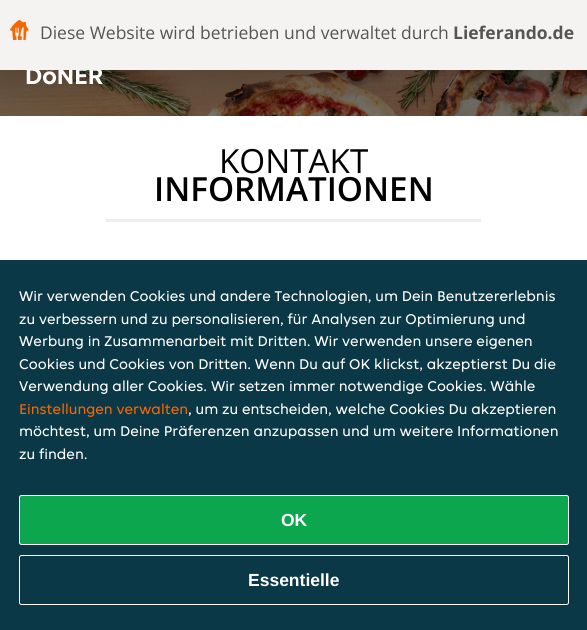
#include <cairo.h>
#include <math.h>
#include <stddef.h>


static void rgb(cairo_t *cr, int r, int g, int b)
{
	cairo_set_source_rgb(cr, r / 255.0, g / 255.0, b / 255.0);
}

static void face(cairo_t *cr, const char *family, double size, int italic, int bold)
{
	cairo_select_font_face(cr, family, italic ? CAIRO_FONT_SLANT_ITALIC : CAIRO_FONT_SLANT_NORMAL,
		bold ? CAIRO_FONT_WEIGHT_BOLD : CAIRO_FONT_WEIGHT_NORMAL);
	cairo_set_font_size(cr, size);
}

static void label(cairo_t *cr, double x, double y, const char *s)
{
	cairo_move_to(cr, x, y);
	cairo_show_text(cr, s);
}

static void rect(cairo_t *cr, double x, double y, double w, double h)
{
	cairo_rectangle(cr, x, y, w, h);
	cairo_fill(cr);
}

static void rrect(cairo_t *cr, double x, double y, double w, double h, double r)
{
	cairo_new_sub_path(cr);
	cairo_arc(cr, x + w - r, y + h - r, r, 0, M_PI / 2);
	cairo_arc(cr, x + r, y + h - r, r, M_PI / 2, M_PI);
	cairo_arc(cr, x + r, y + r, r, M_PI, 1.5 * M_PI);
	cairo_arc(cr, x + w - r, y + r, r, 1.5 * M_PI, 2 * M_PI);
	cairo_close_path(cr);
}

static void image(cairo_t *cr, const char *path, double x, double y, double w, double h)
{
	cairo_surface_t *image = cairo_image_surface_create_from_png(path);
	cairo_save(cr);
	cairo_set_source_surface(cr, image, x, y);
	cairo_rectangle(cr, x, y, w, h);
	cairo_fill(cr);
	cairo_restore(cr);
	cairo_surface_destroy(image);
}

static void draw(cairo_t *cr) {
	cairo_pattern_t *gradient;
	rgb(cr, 255, 255, 255);
	cairo_paint(cr);
	image(cr, "image1.png", 0, 70, 587, 46);
	gradient = cairo_pattern_create_linear(294, 0, 294, 625);
	cairo_pattern_add_color_stop_rgba(gradient, 0, 0, 0, 0, 0.7);
	cairo_pattern_add_color_stop_rgba(gradient, 0.33, 0, 0, 0, 0.4);
	cairo_pattern_add_color_stop_rgba(gradient, 0.67, 0, 0, 0, 0.2);
	cairo_pattern_add_color_stop_rgba(gradient, 1, 0, 0, 0, 0);
	cairo_set_source(cr, gradient);
	cairo_pattern_destroy(gradient);
	rect(cr, 0, 70, 587, 46);
	face(cr, "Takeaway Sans", 25, 0, 1);
	rgb(cr, 255, 255, 255);
	label(cr, 25, 84, "DöNER");
	rgb(cr, 245, 243, 241);
	rect(cr, 0, 0, 587, 70);
	image(cr, "image0.png", 10, 20, 19, 20);
	face(cr, "Open Sans", 17.5, 0, 0);
	rgb(cr, 85, 85, 85);
	label(cr, 40, 39, "Diese Website wird betrieben und verwaltet durch");
	face(cr, "Open Sans", 17.5, 0, 1);
	label(cr, 453, 39, "Lieferando.de");
	face(cr, "Open Sans", 33.25, 0, 0);
	rgb(cr, 0, 0, 0);
	label(cr, 219, 173, "KONTAKT");
	face(cr, "Open Sans SemiBold", 33.25, 0, 0);
	label(cr, 154, 201, "INFORMATIONEN");
	rgb(cr, 238, 238, 238);
	rect(cr, 106, 219, 375, 3);
	rgb(cr, 10, 56, 71);
	rect(cr, 0, 260, 587, 370);
	face(cr, "Takeaway Sans", 15, 0, 0);
	rgb(cr, 255, 255, 255);
	label(cr, 19, 301, "Wir verwenden Cookies und andere Technologien, um Dein Benutzererlebnis");
	label(cr, 19, 324, "zu verbessern und zu personalisieren, für Analysen zur Optimierung und");
	label(cr, 19, 346, "Werbung in Zusammenarbeit mit Dritten. Wir verwenden unsere eigenen");
	label(cr, 19, 369, "Cookies und Cookies von Dritten. Wenn Du auf OK klickst, akzeptierst Du die");
	label(cr, 19, 391, "Verwendung aller Cookies. Wir setzen immer notwendige Cookies. Wähle");
	rgb(cr, 248, 102, 0);
	label(cr, 19, 414, "Einstellungen verwalten");
	rgb(cr, 255, 255, 255);
	label(cr, 188, 414, ", um zu entscheiden, welche Cookies Du akzeptieren");
	label(cr, 19, 436, "möchtest, um Deine Präferenzen anzupassen und um weitere Informationen");
	label(cr, 19, 459, "zu finden.");
	rgb(cr, 12, 166, 79);
	rrect(cr, 19.5, 495.5, 549, 49, 2);
	cairo_fill_preserve(cr);
	rgb(cr, 255, 255, 255);
	cairo_set_line_width(cr, 1);
	cairo_stroke(cr);
	face(cr, "Liberation Sans", 17.5, 0, 1);
	label(cr, 281, 526, "OK");
	rrect(cr, 19.5, 555.5, 549, 49, 2);
	cairo_stroke(cr);
	label(cr, 248, 586, "Essentielle");
}

int main(void) {
	cairo_surface_t *surface = cairo_image_surface_create(CAIRO_FORMAT_RGB24, 587, 630);
	cairo_t *cr = cairo_create(surface);
	cairo_font_options_t *options = cairo_font_options_create();
	cairo_font_options_set_hint_metrics(options, CAIRO_HINT_METRICS_OFF);
	cairo_font_options_set_hint_style(options, CAIRO_HINT_STYLE_NONE);
	cairo_set_font_options(cr, options);
	cairo_set_miter_limit(cr, 4);
	draw(cr);
	cairo_surface_write_to_png(surface, "render.png");
	cairo_font_options_destroy(options);
	cairo_destroy(cr);
	cairo_surface_destroy(surface);
	return 0;
}
